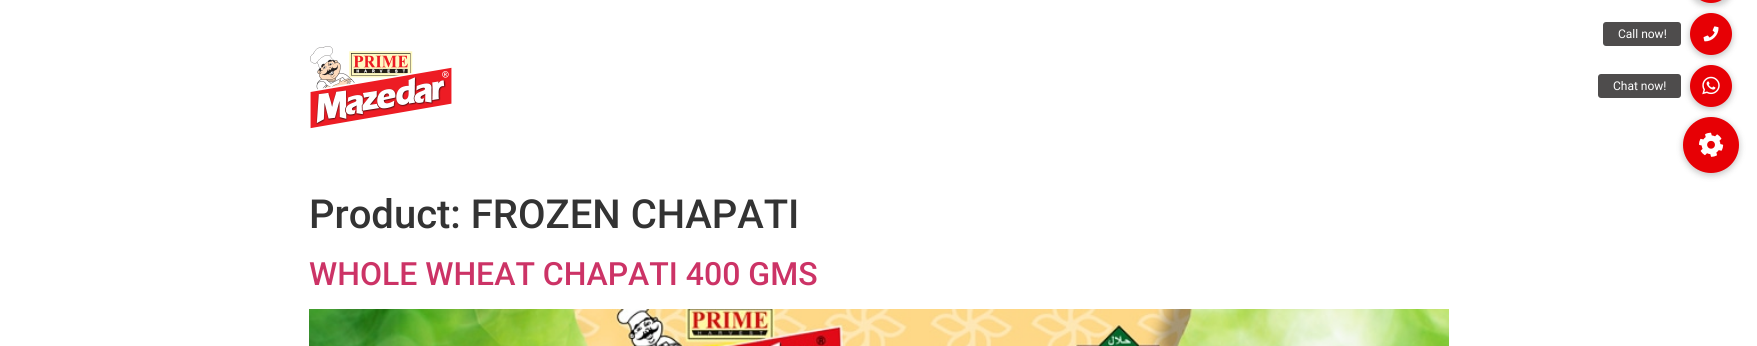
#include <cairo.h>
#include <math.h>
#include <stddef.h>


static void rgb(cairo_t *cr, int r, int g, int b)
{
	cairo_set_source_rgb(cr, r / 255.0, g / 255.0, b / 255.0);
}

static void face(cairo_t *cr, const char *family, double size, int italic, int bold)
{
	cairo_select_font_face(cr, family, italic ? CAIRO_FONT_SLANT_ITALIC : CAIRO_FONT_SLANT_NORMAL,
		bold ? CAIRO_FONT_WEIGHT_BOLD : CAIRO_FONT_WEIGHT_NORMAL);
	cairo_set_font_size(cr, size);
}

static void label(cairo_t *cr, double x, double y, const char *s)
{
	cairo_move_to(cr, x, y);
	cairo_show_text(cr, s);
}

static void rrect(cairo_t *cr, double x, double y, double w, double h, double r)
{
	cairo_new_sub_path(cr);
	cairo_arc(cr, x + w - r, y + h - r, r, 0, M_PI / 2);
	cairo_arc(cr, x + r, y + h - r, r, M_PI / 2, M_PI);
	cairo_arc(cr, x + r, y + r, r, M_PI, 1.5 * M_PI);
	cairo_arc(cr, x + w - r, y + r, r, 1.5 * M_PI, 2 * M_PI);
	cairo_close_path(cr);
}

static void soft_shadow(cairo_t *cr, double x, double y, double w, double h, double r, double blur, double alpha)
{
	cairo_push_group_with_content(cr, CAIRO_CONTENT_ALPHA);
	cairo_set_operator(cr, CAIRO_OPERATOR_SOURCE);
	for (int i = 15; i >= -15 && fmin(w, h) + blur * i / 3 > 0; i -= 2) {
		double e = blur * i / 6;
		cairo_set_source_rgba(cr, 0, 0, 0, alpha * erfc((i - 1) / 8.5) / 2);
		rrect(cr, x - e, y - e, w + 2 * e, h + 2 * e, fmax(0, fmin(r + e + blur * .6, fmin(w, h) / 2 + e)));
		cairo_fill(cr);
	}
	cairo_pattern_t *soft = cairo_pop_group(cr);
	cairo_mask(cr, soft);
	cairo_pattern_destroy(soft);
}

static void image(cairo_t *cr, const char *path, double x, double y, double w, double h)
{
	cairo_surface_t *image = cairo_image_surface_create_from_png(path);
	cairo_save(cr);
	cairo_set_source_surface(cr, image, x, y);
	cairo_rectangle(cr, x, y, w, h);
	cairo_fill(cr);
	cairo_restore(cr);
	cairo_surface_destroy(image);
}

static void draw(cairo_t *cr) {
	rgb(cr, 255, 255, 255);
	cairo_paint(cr);
	image(cr, "image0.png", 310, 46, 142, 83);
	rgb(cr, 0, 0, 0);
	soft_shadow(cr, 1689, 66, 44, 44, 22, 3, 0.2);
	rgb(cr, 231, 0, 5);
	cairo_arc(cr, 1711, 86, 21, 0, 2 * M_PI);
	cairo_fill(cr);
	rgb(cr, 0, 0, 0);
	soft_shadow(cr, 1689, 14, 44, 44, 22, 3, 0.2);
	rgb(cr, 231, 0, 5);
	cairo_arc(cr, 1711, 34, 21, 0, 2 * M_PI);
	cairo_fill(cr);
	rgb(cr, 0, 0, 0);
	soft_shadow(cr, 1689, -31, 44, 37, 22, 3, 0.2);
	rgb(cr, 231, 0, 5);
	rrect(cr, 1690, -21, 42, 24, 21);
	cairo_fill(cr);
	rgb(cr, 78, 76, 76);
	rrect(cr, 1603, 22, 78, 24, 3);
	cairo_fill(cr);
	face(cr, "Roboto", 12, 0, 0);
	rgb(cr, 255, 255, 255);
	label(cr, 1618, 38, "Call now!");
	image(cr, "image1.png", 1703, 26, 16, 16);
	rgb(cr, 78, 76, 76);
	rrect(cr, 1598, 74, 83, 24, 3);
	cairo_fill(cr);
	rgb(cr, 255, 255, 255);
	label(cr, 1613, 90, "Chat now!");
	image(cr, "image2.png", 1702, 76, 18, 19);
	rgb(cr, 0, 0, 0);
	soft_shadow(cr, 1682, 118, 58, 58, 29, 3, 0.2);
	rgb(cr, 231, 0, 5);
	cairo_arc(cr, 1711, 145, 28, 0, 2 * M_PI);
	cairo_fill(cr);
	image(cr, "image3.png", 1699, 132, 25, 25);
	face(cr, "Roboto Medium", 40, 0, 0);
	rgb(cr, 51, 51, 51);
	label(cr, 309, 228, "Product: FROZEN CHAPATI");
	face(cr, "Roboto Medium", 32, 0, 0);
	rgb(cr, 204, 51, 102);
	label(cr, 309, 285, "WHOLE WHEAT CHAPATI 400 GMS");
	image(cr, "image4.png", 309, 309, 1140, 37);
}

int main(void) {
	cairo_surface_t *surface = cairo_image_surface_create(CAIRO_FORMAT_RGB24, 1757, 346);
	cairo_t *cr = cairo_create(surface);
	cairo_font_options_t *options = cairo_font_options_create();
	cairo_font_options_set_hint_metrics(options, CAIRO_HINT_METRICS_OFF);
	cairo_font_options_set_hint_style(options, CAIRO_HINT_STYLE_NONE);
	cairo_set_font_options(cr, options);
	cairo_set_miter_limit(cr, 4);
	draw(cr);
	cairo_surface_write_to_png(surface, "render.png");
	cairo_font_options_destroy(options);
	cairo_destroy(cr);
	cairo_surface_destroy(surface);
	return 0;
}
